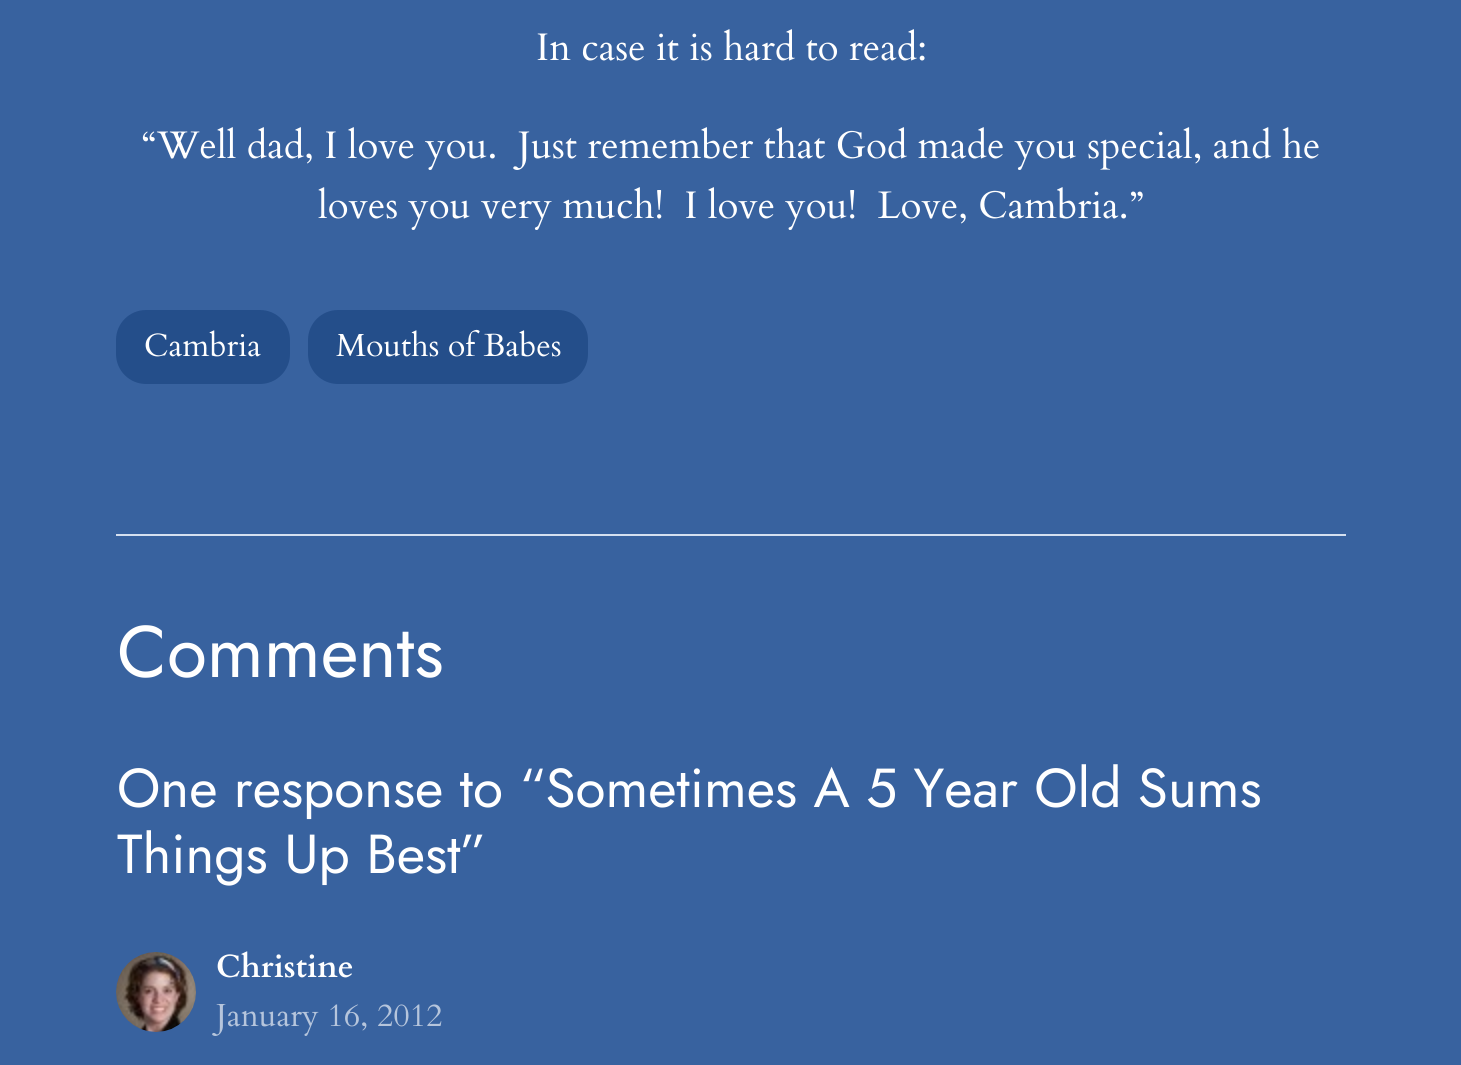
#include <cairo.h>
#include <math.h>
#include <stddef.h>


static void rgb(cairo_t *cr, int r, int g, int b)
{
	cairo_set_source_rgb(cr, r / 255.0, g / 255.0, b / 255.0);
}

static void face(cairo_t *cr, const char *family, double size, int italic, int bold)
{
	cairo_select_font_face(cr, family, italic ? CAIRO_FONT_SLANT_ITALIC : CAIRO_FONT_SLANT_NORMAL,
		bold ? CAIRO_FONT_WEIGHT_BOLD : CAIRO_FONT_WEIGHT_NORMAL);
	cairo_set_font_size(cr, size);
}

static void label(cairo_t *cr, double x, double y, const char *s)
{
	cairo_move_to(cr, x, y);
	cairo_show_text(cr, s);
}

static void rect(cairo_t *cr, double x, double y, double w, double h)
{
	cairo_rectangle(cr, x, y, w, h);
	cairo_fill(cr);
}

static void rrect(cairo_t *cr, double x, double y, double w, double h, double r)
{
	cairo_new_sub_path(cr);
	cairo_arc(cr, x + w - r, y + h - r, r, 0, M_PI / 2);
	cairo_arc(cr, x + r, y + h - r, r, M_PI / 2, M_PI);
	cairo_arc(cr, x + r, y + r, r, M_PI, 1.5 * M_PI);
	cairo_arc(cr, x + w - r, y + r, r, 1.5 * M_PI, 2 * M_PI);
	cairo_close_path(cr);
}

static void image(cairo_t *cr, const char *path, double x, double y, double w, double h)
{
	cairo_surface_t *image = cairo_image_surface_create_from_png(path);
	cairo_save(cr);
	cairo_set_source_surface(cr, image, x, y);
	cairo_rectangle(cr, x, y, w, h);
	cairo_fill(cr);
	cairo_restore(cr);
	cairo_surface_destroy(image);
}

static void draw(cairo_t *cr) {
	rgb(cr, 56, 98, 159);
	cairo_paint(cr);
	image(cr, "image0.png", 537, 29, 388, 32);
	image(cr, "image1.png", 142, 127, 1177, 43);
	image(cr, "image2.png", 318, 187, 825, 43);
	rgb(cr, 36, 78, 138);
	rrect(cr, 116, 310, 174, 74, 30);
	cairo_fill(cr);
	image(cr, "image3.png", 145, 330, 116, 27);
	rrect(cr, 308, 310, 280, 74, 30);
	cairo_fill(cr);
	image(cr, "image4.png", 336, 329, 225, 28);
	rgb(cr, 213, 224, 240);
	rect(cr, 116, 534, 1230, 2);
	face(cr, "Jost", 73, 0, 0);
	rgb(cr, 255, 255, 255);
	label(cr, 117, 677, "Comments");
	face(cr, "Jost", 54.85, 0, 0);
	label(cr, 117, 807, "One response to “Sometimes A 5 Year Old Sums");
	label(cr, 117, 873, "Things Up Best”");
	image(cr, "image5.png", 116, 952, 80, 80);
	face(cr, "Cardo", 32, 0, 1);
	label(cr, 216, 977, "Christine");
	image(cr, "image6.png", 212, 1004, 230, 32);
}

int main(void) {
	cairo_surface_t *surface = cairo_image_surface_create(CAIRO_FORMAT_RGB24, 1461, 1065);
	cairo_t *cr = cairo_create(surface);
	cairo_font_options_t *options = cairo_font_options_create();
	cairo_font_options_set_hint_metrics(options, CAIRO_HINT_METRICS_OFF);
	cairo_font_options_set_hint_style(options, CAIRO_HINT_STYLE_NONE);
	cairo_set_font_options(cr, options);
	cairo_set_miter_limit(cr, 4);
	draw(cr);
	cairo_surface_write_to_png(surface, "render.png");
	cairo_font_options_destroy(options);
	cairo_destroy(cr);
	cairo_surface_destroy(surface);
	return 0;
}
